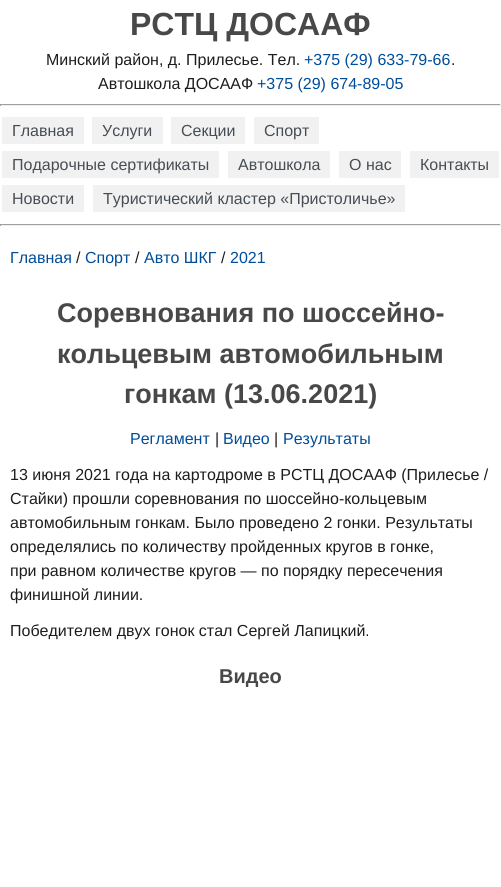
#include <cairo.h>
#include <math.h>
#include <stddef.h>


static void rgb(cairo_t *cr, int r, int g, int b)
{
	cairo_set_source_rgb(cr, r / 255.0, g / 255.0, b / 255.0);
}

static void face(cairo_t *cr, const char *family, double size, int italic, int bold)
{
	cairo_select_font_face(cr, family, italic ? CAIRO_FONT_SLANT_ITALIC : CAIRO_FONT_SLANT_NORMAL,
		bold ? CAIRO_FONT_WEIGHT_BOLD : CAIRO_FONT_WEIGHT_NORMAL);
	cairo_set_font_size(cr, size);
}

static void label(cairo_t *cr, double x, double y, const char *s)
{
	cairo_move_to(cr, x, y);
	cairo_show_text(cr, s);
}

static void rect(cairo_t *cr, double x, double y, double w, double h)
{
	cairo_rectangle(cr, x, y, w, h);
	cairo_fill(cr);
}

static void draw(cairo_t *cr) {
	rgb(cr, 255, 255, 255);
	cairo_paint(cr);
	face(cr, "Liberation Sans", 32, 0, 1);
	rgb(cr, 73, 72, 72);
	label(cr, 130, 35, "РСТЦ ДОСААФ");
	face(cr, "Liberation Sans", 16, 0, 0);
	rgb(cr, 29, 29, 31);
	label(cr, 46, 65, "Минский район, д. Прилесье. Тел.");
	rgb(cr, 0, 77, 153);
	label(cr, 304, 65, "+375 (29) 633-79-66");
	rgb(cr, 29, 29, 31);
	label(cr, 451, 65, ".");
	label(cr, 98, 89, "Автошкола ДОСААФ");
	rgb(cr, 0, 77, 153);
	label(cr, 257, 89, "+375 (29) 674-89-05");
	rgb(cr, 159, 159, 159);
	rect(cr, 0, 104, 501, 1);
	rgb(cr, 238, 238, 238);
	rect(cr, 500, 104, 1, 2);
	rect(cr, 0, 105, 501, 1);
	rgb(cr, 159, 159, 159);
	rect(cr, 0, 104, 1, 2);
	rgb(cr, 241, 241, 241);
	rect(cr, 2, 117, 82, 27);
	rgb(cr, 71, 77, 84);
	label(cr, 12, 136, "Главная");
	rgb(cr, 241, 241, 241);
	rect(cr, 92, 117, 71, 27);
	rgb(cr, 71, 77, 84);
	label(cr, 102, 136, "Услуги");
	rgb(cr, 241, 241, 241);
	rect(cr, 171, 117, 74, 27);
	rgb(cr, 71, 77, 84);
	label(cr, 181, 136, "Секции");
	rgb(cr, 241, 241, 241);
	rect(cr, 254, 117, 65, 27);
	rgb(cr, 71, 77, 84);
	label(cr, 264, 136, "Спорт");
	rgb(cr, 241, 241, 241);
	rect(cr, 2, 151, 217, 27);
	rgb(cr, 71, 77, 84);
	label(cr, 12, 170, "Подарочные сертификаты");
	rgb(cr, 241, 241, 241);
	rect(cr, 228, 151, 102, 27);
	rgb(cr, 71, 77, 84);
	label(cr, 238, 170, "Автошкола");
	rgb(cr, 241, 241, 241);
	rect(cr, 339, 151, 62, 27);
	rgb(cr, 71, 77, 84);
	label(cr, 349, 170, "О нас");
	rgb(cr, 241, 241, 241);
	rect(cr, 410, 151, 89, 27);
	rgb(cr, 71, 77, 84);
	label(cr, 420, 170, "Контакты");
	rgb(cr, 241, 241, 241);
	rect(cr, 2, 185, 82, 27);
	rgb(cr, 71, 77, 84);
	label(cr, 12, 204, "Новости");
	rgb(cr, 241, 241, 241);
	rect(cr, 93, 185, 312, 27);
	rgb(cr, 71, 77, 84);
	label(cr, 103, 204, "Туристический кластер «Пристоличье»");
	rgb(cr, 159, 159, 159);
	rect(cr, 0, 224, 501, 1);
	rgb(cr, 238, 238, 238);
	rect(cr, 500, 224, 1, 2);
	rect(cr, 0, 225, 501, 1);
	rgb(cr, 159, 159, 159);
	rect(cr, 0, 224, 1, 2);
	rgb(cr, 0, 77, 153);
	label(cr, 10, 263, "Главная");
	rgb(cr, 29, 29, 31);
	label(cr, 76, 263, "/");
	rgb(cr, 0, 77, 153);
	label(cr, 85, 263, "Спорт");
	rgb(cr, 29, 29, 31);
	label(cr, 135, 263, "/");
	rgb(cr, 0, 77, 153);
	label(cr, 144, 263, "Авто ШКГ");
	rgb(cr, 29, 29, 31);
	label(cr, 221, 263, "/");
	rgb(cr, 0, 77, 153);
	label(cr, 230, 263, "2021");
	face(cr, "Liberation Sans", 27, 0, 1);
	rgb(cr, 73, 72, 72);
	label(cr, 57, 322, "Соревнования по шоссейно-");
	label(cr, 57, 363, "кольцевым автомобильным");
	label(cr, 124, 403, "гонкам (13.06.2021)");
	face(cr, "Liberation Sans", 16, 0, 0);
	rgb(cr, 0, 77, 153);
	label(cr, 130, 444, "Регламент");
	rgb(cr, 29, 29, 31);
	label(cr, 215, 444, "|");
	rgb(cr, 0, 77, 153);
	label(cr, 223, 444, "Видео");
	rgb(cr, 29, 29, 31);
	label(cr, 274, 444, "|");
	rgb(cr, 0, 77, 153);
	label(cr, 283, 444, "Результаты");
	rgb(cr, 29, 29, 31);
	label(cr, 10, 480, "13 июня 2021 года на картодроме в РСТЦ ДОСААФ (Прилесье /");
	label(cr, 10, 504, "Стайки) прошли соревнования по шоссейно-кольцевым");
	label(cr, 10, 528, "автомобильным гонкам. Было проведено 2 гонки. Результаты");
	label(cr, 10, 552, "определялись по количеству пройденных кругов в гонке,");
	label(cr, 10, 576, "при равном количестве кругов — по порядку пересечения");
	label(cr, 10, 600, "финишной линии.");
	label(cr, 10, 636, "Победителем двух гонок стал Сергей Лапицкий.");
	face(cr, "Liberation Sans", 20, 0, 1);
	rgb(cr, 73, 72, 72);
	label(cr, 219, 683, "Видео");
}

int main(void) {
	cairo_surface_t *surface = cairo_image_surface_create(CAIRO_FORMAT_RGB24, 501, 887);
	cairo_t *cr = cairo_create(surface);
	cairo_font_options_t *options = cairo_font_options_create();
	cairo_font_options_set_hint_metrics(options, CAIRO_HINT_METRICS_OFF);
	cairo_font_options_set_hint_style(options, CAIRO_HINT_STYLE_NONE);
	cairo_set_font_options(cr, options);
	cairo_set_miter_limit(cr, 4);
	draw(cr);
	cairo_surface_write_to_png(surface, "render.png");
	cairo_font_options_destroy(options);
	cairo_destroy(cr);
	cairo_surface_destroy(surface);
	return 0;
}
